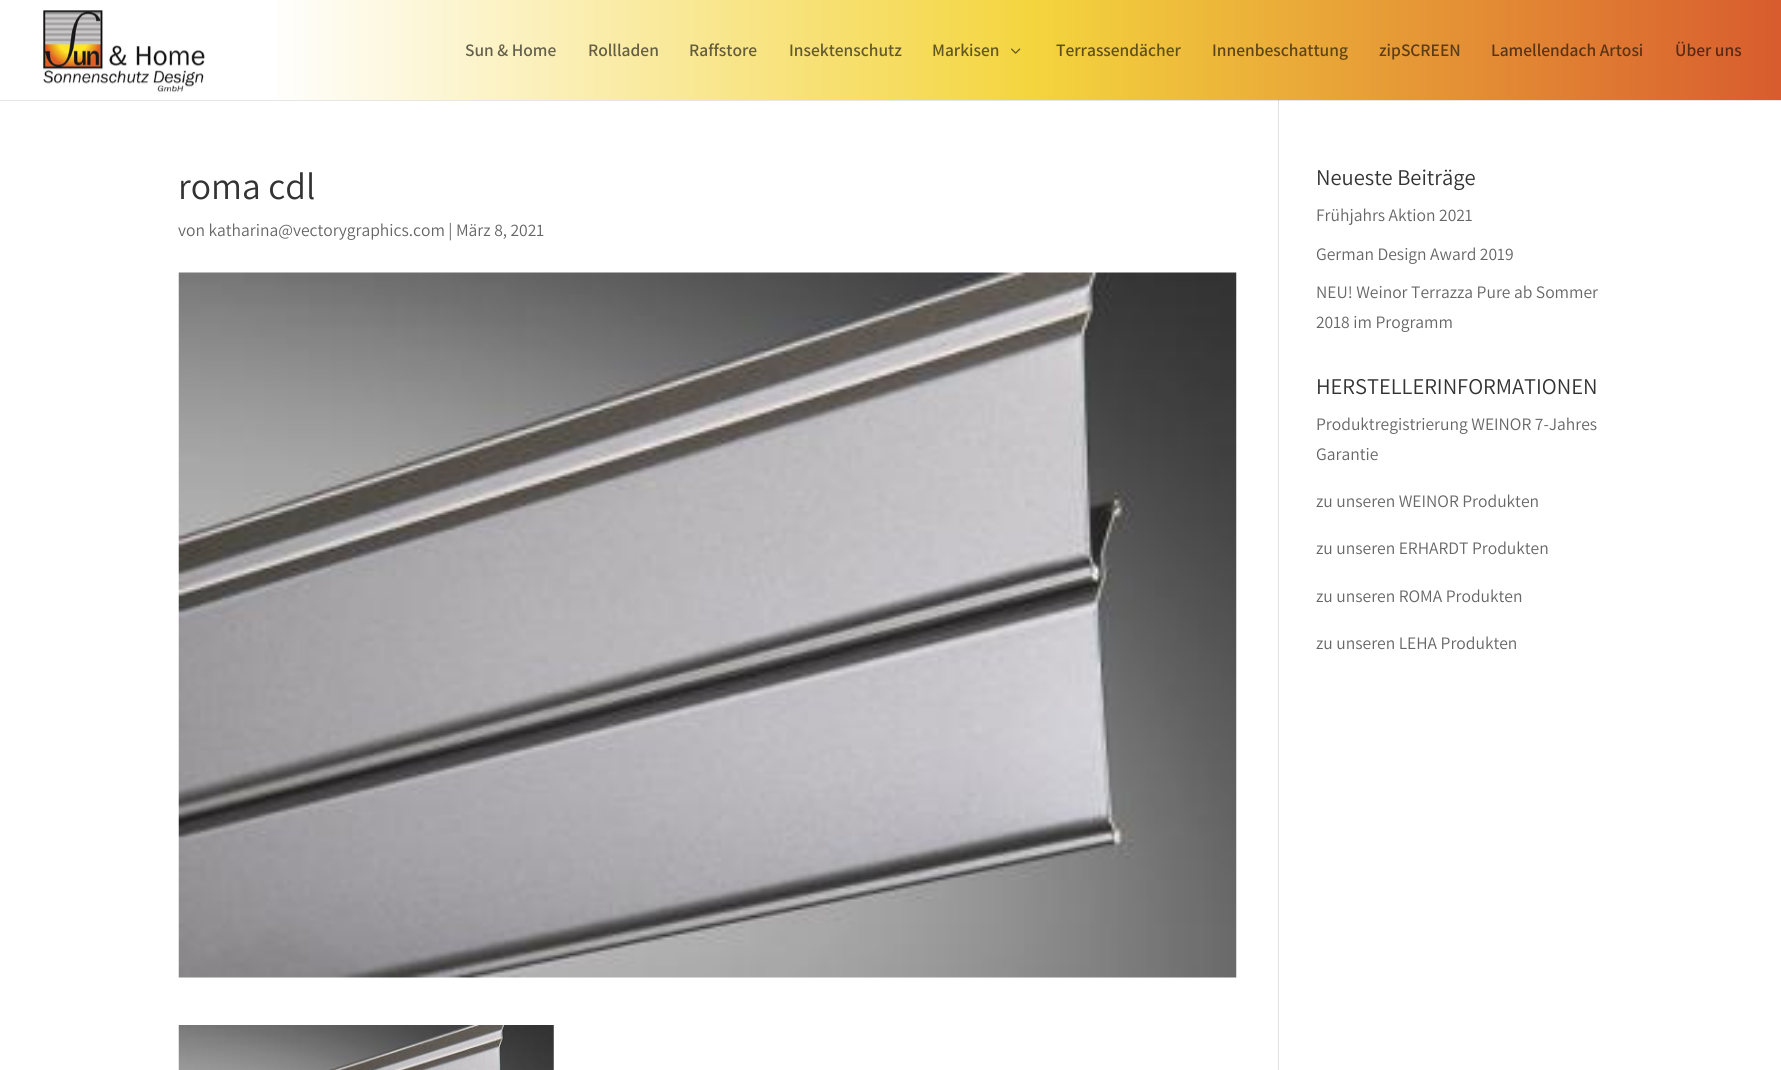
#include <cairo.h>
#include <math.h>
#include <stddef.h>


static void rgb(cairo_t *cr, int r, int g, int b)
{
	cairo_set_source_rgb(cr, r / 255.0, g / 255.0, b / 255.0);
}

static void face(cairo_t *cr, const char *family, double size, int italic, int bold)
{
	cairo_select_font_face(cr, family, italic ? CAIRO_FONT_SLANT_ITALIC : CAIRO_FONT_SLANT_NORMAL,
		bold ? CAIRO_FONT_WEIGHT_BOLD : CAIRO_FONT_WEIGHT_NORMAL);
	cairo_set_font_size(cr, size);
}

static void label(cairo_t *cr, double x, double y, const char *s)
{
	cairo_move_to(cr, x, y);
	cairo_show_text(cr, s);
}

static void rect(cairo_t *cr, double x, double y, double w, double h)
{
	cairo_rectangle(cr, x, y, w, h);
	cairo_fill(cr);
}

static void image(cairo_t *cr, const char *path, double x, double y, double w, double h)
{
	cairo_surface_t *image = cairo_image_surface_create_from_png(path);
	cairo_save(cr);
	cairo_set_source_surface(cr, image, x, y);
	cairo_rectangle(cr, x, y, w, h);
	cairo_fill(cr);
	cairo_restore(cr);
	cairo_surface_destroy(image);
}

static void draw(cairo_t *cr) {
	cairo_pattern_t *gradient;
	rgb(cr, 255, 255, 255);
	cairo_paint(cr);
	rgb(cr, 230, 230, 230);
	rect(cr, 0, 100, 1781, 1);
	rgb(cr, 226, 226, 226);
	rect(cr, 1278, 94, 1, 976);
	gradient = cairo_pattern_create_linear(0, 50, 1781, 50);
	cairo_pattern_add_color_stop_rgba(gradient, 0.15, 1, 1, 1, 1);
	cairo_pattern_add_color_stop_rgba(gradient, 0.58, 0.957, 0.835, 0.243, 1);
	cairo_pattern_add_color_stop_rgba(gradient, 1, 0.847, 0.361, 0.18, 1);
	cairo_set_source(cr, gradient);
	cairo_pattern_destroy(gradient);
	rect(cr, 277, 0, 1504, 100);
	image(cr, "image0.png", 43, 10, 162, 83);
	face(cr, "Assistant SemiBold", 17.5, 0, 0);
	rgb(cr, 101, 97, 77);
	label(cr, 465, 56, "Sun & Home");
	rgb(cr, 100, 94, 66);
	label(cr, 588, 56, "Rollladen");
	rgb(cr, 99, 92, 56);
	label(cr, 689, 56, "Raffstore");
	rgb(cr, 99, 89, 44);
	label(cr, 789, 56, "Insektenschutz");
	rgb(cr, 98, 87, 32);
	label(cr, 932, 56, "Markisen");
	image(cr, "image1.png", 1011, 48, 10, 6);
	rgb(cr, 96, 80, 24);
	label(cr, 1056, 56, "Terrassendächer");
	rgb(cr, 94, 69, 23);
	label(cr, 1212, 56, "Innenbeschattung");
	rgb(cr, 92, 60, 21);
	label(cr, 1379, 56, "zipSCREEN");
	rgb(cr, 90, 51, 20);
	label(cr, 1491, 56, "Lamellendach Artosi");
	rgb(cr, 88, 42, 19);
	label(cr, 1675, 56, "Über uns");
	rgb(cr, 203, 203, 203);
	rect(cr, 1278, 100, 1, 1);
	face(cr, "Assistant", 37.5, 0, 0);
	rgb(cr, 51, 51, 51);
	label(cr, 178, 199, "roma cdl");
	face(cr, "Assistant", 17.5, 0, 0);
	rgb(cr, 102, 102, 102);
	label(cr, 178, 236, "von katharina@vectorygraphics.com | März 8, 2021");
	image(cr, "image2.png", 178, 272, 1059, 706);
	image(cr, "image3.png", 178, 1025, 376, 45);
	face(cr, "Assistant", 22.5, 0, 0);
	rgb(cr, 51, 51, 51);
	label(cr, 1316, 185, "Neueste Beiträge");
	face(cr, "Assistant", 17.5, 0, 0);
	rgb(cr, 102, 102, 102);
	label(cr, 1316, 221, "Frühjahrs Aktion 2021");
	label(cr, 1316, 260, "German Design Award 2019");
	label(cr, 1316, 298, "NEU! Weinor Terrazza Pure ab Sommer");
	label(cr, 1316, 328, "2018 im Programm");
	face(cr, "Assistant", 22.5, 0, 0);
	rgb(cr, 51, 51, 51);
	label(cr, 1316, 394, "HERSTELLERINFORMATIONEN");
	face(cr, "Assistant", 17.5, 0, 0);
	rgb(cr, 102, 102, 102);
	label(cr, 1316, 430, "Produktregistrierung WEINOR 7-Jahres");
	label(cr, 1316, 460, "Garantie");
	label(cr, 1316, 507, "zu unseren WEINOR Produkten");
	label(cr, 1316, 554, "zu unseren ERHARDT Produkten");
	label(cr, 1316, 602, "zu unseren ROMA Produkten");
	label(cr, 1316, 649, "zu unseren LEHA Produkten");
}

int main(void) {
	cairo_surface_t *surface = cairo_image_surface_create(CAIRO_FORMAT_RGB24, 1781, 1070);
	cairo_t *cr = cairo_create(surface);
	cairo_font_options_t *options = cairo_font_options_create();
	cairo_font_options_set_hint_metrics(options, CAIRO_HINT_METRICS_OFF);
	cairo_font_options_set_hint_style(options, CAIRO_HINT_STYLE_NONE);
	cairo_set_font_options(cr, options);
	cairo_set_miter_limit(cr, 4);
	draw(cr);
	cairo_surface_write_to_png(surface, "render.png");
	cairo_font_options_destroy(options);
	cairo_destroy(cr);
	cairo_surface_destroy(surface);
	return 0;
}
